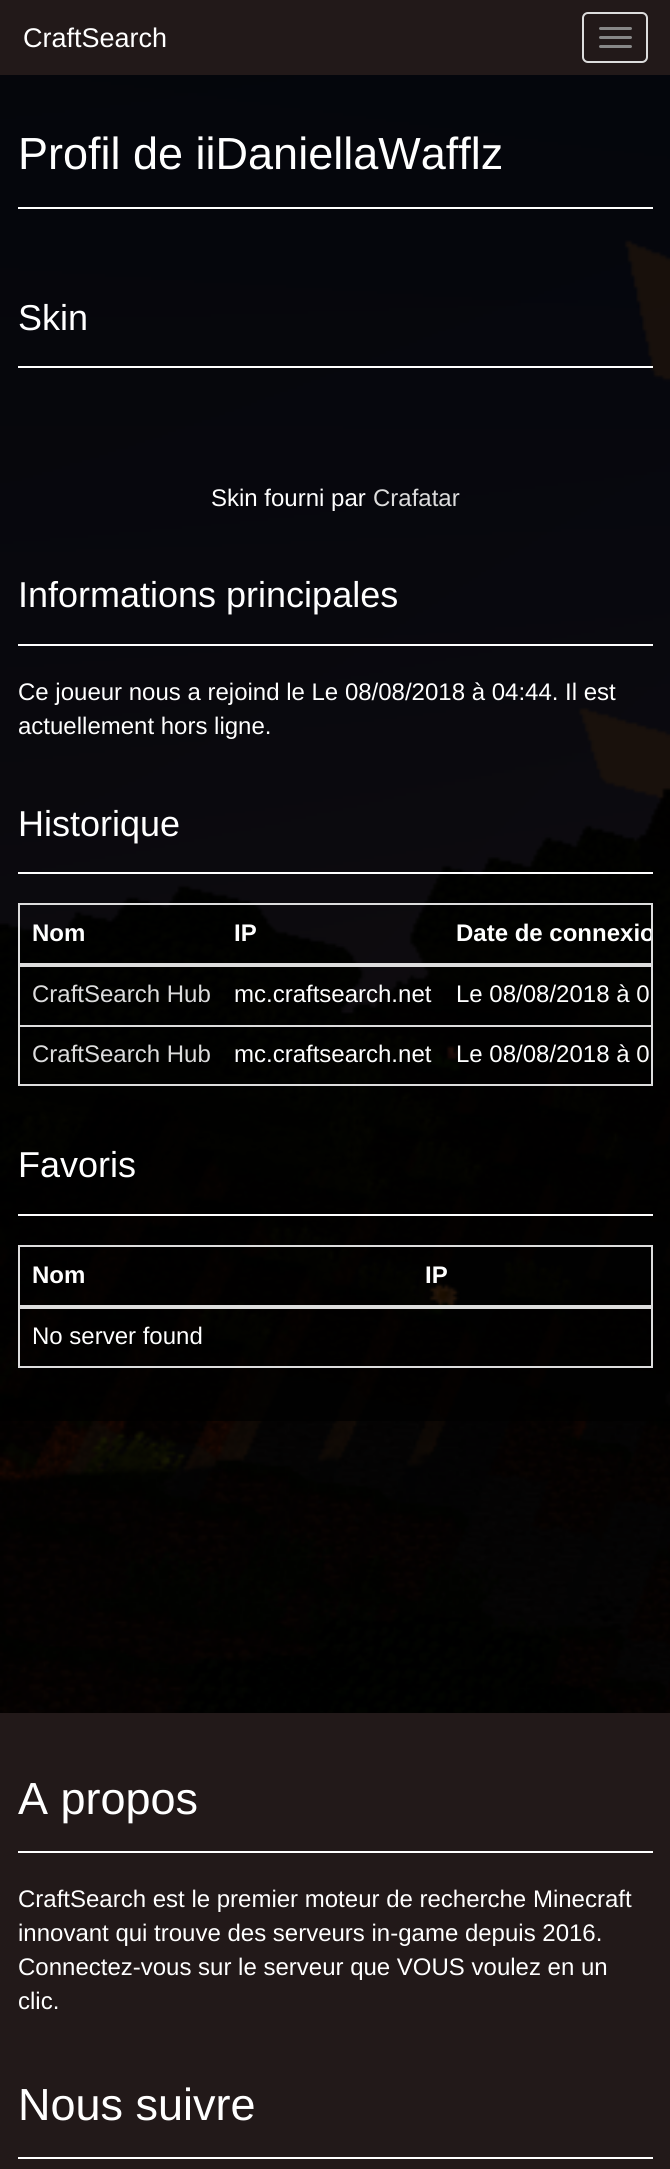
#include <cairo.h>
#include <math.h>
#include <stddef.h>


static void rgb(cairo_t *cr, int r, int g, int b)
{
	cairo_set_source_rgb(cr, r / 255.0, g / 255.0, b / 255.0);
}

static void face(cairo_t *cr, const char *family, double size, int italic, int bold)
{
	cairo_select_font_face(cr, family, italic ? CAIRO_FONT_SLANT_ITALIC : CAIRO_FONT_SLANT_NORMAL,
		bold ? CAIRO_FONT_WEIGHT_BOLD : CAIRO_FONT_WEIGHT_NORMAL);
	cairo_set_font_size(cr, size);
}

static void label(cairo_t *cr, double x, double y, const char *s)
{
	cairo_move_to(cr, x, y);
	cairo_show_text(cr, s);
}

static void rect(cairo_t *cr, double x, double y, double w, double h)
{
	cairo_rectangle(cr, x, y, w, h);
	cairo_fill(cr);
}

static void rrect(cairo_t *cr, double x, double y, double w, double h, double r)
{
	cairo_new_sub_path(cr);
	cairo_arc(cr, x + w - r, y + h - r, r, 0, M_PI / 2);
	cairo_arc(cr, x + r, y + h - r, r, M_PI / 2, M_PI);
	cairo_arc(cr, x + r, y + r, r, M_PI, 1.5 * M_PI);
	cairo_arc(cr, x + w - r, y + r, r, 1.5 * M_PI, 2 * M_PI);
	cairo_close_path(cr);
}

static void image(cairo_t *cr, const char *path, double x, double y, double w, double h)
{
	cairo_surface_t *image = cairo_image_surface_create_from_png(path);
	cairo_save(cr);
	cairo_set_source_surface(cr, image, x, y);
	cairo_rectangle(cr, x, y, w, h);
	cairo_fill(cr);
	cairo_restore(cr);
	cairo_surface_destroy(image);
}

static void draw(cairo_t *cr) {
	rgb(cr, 255, 255, 255);
	cairo_paint(cr);
	image(cr, "image0.png", 0, 75, 670, 1638);
	rgb(cr, 34, 25, 25);
	rect(cr, 0, 0, 670, 75);
	face(cr, "Liberation Sans", 27, 0, 0);
	rgb(cr, 255, 255, 255);
	label(cr, 23, 47, "CraftSearch");
	rrect(cr, 583, 13, 64, 49, 5);
	rgb(cr, 221, 221, 221);
	cairo_stroke(cr);
	rgb(cr, 136, 136, 136);
	rrect(cr, 599, 27, 33, 3, 1.5);
	cairo_fill(cr);
	rrect(cr, 599, 36, 33, 3, 1.5);
	cairo_fill(cr);
	rrect(cr, 599, 45, 33, 3, 1.5);
	cairo_fill(cr);
	cairo_set_source_rgba(cr, 0, 0, 0, 0.75);
	rect(cr, 0, 75, 670, 1346);
	rgb(cr, 255, 255, 255);
	rect(cr, 18, 207, 635, 2);
	face(cr, "Liberation Sans", 45, 0, 0);
	label(cr, 18, 169, "Profil de iiDaniellaWafflz");
	rect(cr, 18, 366, 635, 2);
	face(cr, "Liberation Sans", 36, 0, 0);
	label(cr, 18, 330, "Skin");
	face(cr, "Liberation Sans", 24, 0, 0);
	label(cr, 211, 506, "Skin fourni par");
	rgb(cr, 221, 221, 221);
	label(cr, 373, 506, "Crafatar");
	rgb(cr, 255, 255, 255);
	rect(cr, 18, 644, 635, 2);
	face(cr, "Liberation Sans", 36, 0, 0);
	label(cr, 18, 607, "Informations principales");
	face(cr, "Liberation Sans", 24, 0, 0);
	label(cr, 18, 700, "Ce joueur nous a rejoind le Le 08/08/2018 à 04:44. Il est");
	label(cr, 18, 734, "actuellement hors ligne.");
	rect(cr, 18, 872, 635, 2);
	face(cr, "Liberation Sans", 36, 0, 0);
	label(cr, 18, 836, "Historique");
	cairo_rectangle(cr, 19, 904, 633, 181);
	rgb(cr, 221, 221, 221);
	cairo_stroke(cr);
	face(cr, "Liberation Sans", 24, 0, 1);
	rgb(cr, 255, 255, 255);
	label(cr, 32, 941, "Nom");
	label(cr, 234, 941, "IP");
	rgb(cr, 221, 221, 221);
	rect(cr, 20, 963, 631, 3);
	cairo_save(cr);
	cairo_rectangle(cr, 20, 905, 631, 180);
	cairo_clip(cr);
	rgb(cr, 255, 255, 255);
	label(cr, 456, 941, "Date de connexio");
	cairo_restore(cr);
	face(cr, "Liberation Sans", 24, 0, 0);
	label(cr, 32, 1002, "CraftSearch Hub");
	rgb(cr, 255, 255, 255);
	label(cr, 234, 1002, "mc.craftsearch.net");
	rgb(cr, 221, 221, 221);
	rect(cr, 20, 966, 631, 1);
	rgb(cr, 255, 255, 255);
	label(cr, 456, 1002, "Le 08/08/2018 à 0");
	rgb(cr, 221, 221, 221);
	label(cr, 32, 1062, "CraftSearch Hub");
	rgb(cr, 255, 255, 255);
	label(cr, 234, 1062, "mc.craftsearch.net");
	rgb(cr, 221, 221, 221);
	rect(cr, 20, 1025, 631, 2);
	rgb(cr, 255, 255, 255);
	label(cr, 456, 1062, "Le 08/08/2018 à 0");
	rect(cr, 18, 1214, 635, 2);
	face(cr, "Liberation Sans", 36, 0, 0);
	label(cr, 18, 1177, "Favoris");
	cairo_rectangle(cr, 19, 1246, 633, 121);
	rgb(cr, 221, 221, 221);
	cairo_stroke(cr);
	face(cr, "Liberation Sans", 24, 0, 1);
	rgb(cr, 255, 255, 255);
	label(cr, 32, 1283, "Nom");
	rgb(cr, 221, 221, 221);
	rect(cr, 20, 1305, 631, 3);
	rgb(cr, 255, 255, 255);
	label(cr, 425, 1283, "IP");
	rgb(cr, 221, 221, 221);
	rect(cr, 20, 1308, 631, 1);
	face(cr, "Liberation Sans", 24, 0, 0);
	rgb(cr, 255, 255, 255);
	label(cr, 32, 1344, "No server found");
	rgb(cr, 34, 25, 25);
	rect(cr, 0, 1713, 670, 456);
	rgb(cr, 255, 255, 255);
	rect(cr, 18, 1851, 635, 2);
	face(cr, "Liberation Sans", 45, 0, 0);
	label(cr, 18, 1814, "A propos");
	face(cr, "Liberation Sans", 24, 0, 0);
	label(cr, 18, 1907, "CraftSearch est le premier moteur de recherche Minecraft");
	label(cr, 18, 1941, "innovant qui trouve des serveurs in-game depuis 2016.");
	label(cr, 18, 1975, "Connectez-vous sur le serveur que VOUS voulez en un");
	label(cr, 18, 2009, "clic.");
	rect(cr, 18, 2157, 635, 2);
	face(cr, "Liberation Sans", 45, 0, 0);
	label(cr, 18, 2120, "Nous suivre");
}

int main(void) {
	cairo_surface_t *surface = cairo_image_surface_create(CAIRO_FORMAT_RGB24, 670, 2169);
	cairo_t *cr = cairo_create(surface);
	cairo_font_options_t *options = cairo_font_options_create();
	cairo_font_options_set_hint_metrics(options, CAIRO_HINT_METRICS_OFF);
	cairo_font_options_set_hint_style(options, CAIRO_HINT_STYLE_NONE);
	cairo_set_font_options(cr, options);
	cairo_set_miter_limit(cr, 4);
	draw(cr);
	cairo_surface_write_to_png(surface, "render.png");
	cairo_font_options_destroy(options);
	cairo_destroy(cr);
	cairo_surface_destroy(surface);
	return 0;
}
